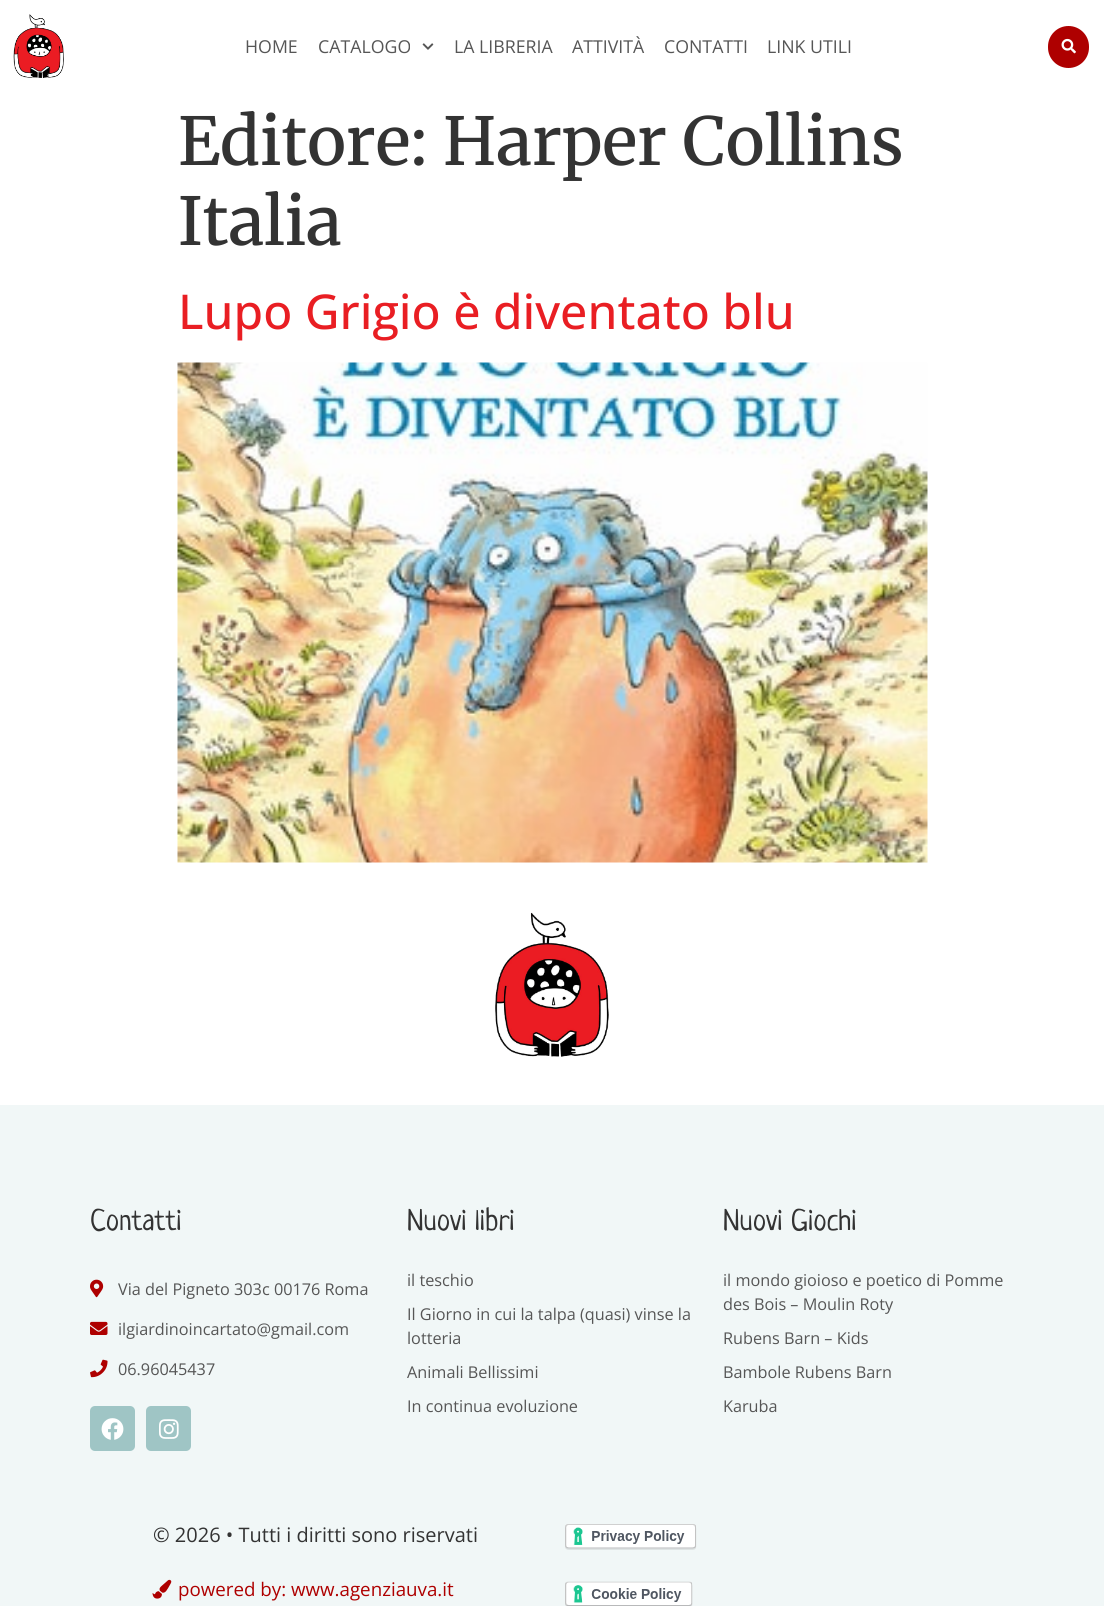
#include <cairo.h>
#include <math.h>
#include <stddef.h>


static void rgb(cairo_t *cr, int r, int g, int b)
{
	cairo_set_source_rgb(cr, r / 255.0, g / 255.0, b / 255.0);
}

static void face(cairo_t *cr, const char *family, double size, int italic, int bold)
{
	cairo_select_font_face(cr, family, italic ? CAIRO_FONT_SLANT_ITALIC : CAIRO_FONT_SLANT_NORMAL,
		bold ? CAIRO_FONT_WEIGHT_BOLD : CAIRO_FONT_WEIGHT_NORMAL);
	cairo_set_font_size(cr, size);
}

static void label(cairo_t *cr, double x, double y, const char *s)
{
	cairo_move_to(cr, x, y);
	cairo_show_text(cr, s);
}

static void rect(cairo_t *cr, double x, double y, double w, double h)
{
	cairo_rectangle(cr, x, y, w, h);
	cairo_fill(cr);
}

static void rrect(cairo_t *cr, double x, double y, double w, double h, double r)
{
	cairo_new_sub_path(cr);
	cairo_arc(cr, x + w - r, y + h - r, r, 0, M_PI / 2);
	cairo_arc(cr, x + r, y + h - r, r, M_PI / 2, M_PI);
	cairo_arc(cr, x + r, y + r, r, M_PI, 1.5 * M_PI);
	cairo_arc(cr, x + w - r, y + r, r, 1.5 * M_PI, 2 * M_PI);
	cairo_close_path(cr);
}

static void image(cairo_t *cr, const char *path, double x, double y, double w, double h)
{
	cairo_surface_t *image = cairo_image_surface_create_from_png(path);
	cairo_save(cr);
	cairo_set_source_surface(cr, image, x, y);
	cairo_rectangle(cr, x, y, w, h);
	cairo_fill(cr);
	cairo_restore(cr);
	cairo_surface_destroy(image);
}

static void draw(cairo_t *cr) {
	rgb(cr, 255, 255, 255);
	cairo_paint(cr);
	image(cr, "image0.png", 13, 14, 51, 64);
	face(cr, "Open Sans", 17.75, 0, 0);
	rgb(cr, 86, 86, 86);
	label(cr, 245, 53, "HOME");
	label(cr, 318, 53, "CATALOGO");
	image(cr, "image1.png", 422, 43, 12, 7);
	label(cr, 454, 53, "LA LIBRERIA");
	label(cr, 572, 53, "ATTIVITÀ");
	label(cr, 664, 53, "CONTATTI");
	label(cr, 767, 53, "LINK UTILI");
	rgb(cr, 174, 0, 0);
	rrect(cr, 1048, 26, 41, 42, 20.5);
	cairo_fill(cr);
	image(cr, "image2.png", 1061, 38, 15, 16);
	face(cr, "Merriweather Medium", 66, 0, 0);
	rgb(cr, 51, 51, 51);
	label(cr, 178, 165, "Editore: Harper Collins");
	label(cr, 178, 245, "Italia");
	face(cr, "Open Sans Medium", 48, 0, 0);
	rgb(cr, 233, 30, 35);
	label(cr, 178, 329, "Lupo Grigio è diventato blu");
	image(cr, "image3.png", 177, 362, 751, 501);
	image(cr, "image4.png", 495, 912, 114, 145);
	rgb(cr, 241, 247, 247);
	rect(cr, 0, 1105, 1104, 501);
	face(cr, "Neucha", 30, 0, 0);
	rgb(cr, 51, 51, 51);
	label(cr, 90, 1230, "Contatti");
	image(cr, "image5.png", 90, 1279, 14, 19);
	face(cr, "Open Sans", 16.25, 0, 0);
	rgb(cr, 86, 86, 86);
	label(cr, 118, 1295, "Via del Pigneto 303c 00176 Roma");
	image(cr, "image6.png", 90, 1321, 18, 14);
	label(cr, 118, 1335, "ilgiardinoincartato@gmail.com");
	image(cr, "image7.png", 90, 1359, 18, 19);
	label(cr, 118, 1375, "06.96045437");
	rgb(cr, 159, 197, 197);
	rrect(cr, 90, 1406, 45, 45, 5);
	cairo_fill(cr);
	image(cr, "image8.png", 101, 1418, 23, 22);
	rrect(cr, 146, 1406, 45, 45, 5);
	cairo_fill(cr);
	image(cr, "image9.png", 159, 1419, 20, 20);
	face(cr, "Neucha", 30, 0, 0);
	rgb(cr, 51, 51, 51);
	label(cr, 407, 1230, "Nuovi libri");
	face(cr, "Open Sans", 16.25, 0, 0);
	rgb(cr, 86, 86, 86);
	label(cr, 407, 1286, "il teschio");
	label(cr, 407, 1320, "Il Giorno in cui la talpa (quasi) vinse la");
	label(cr, 407, 1344, "lotteria");
	label(cr, 407, 1378, "Animali Bellissimi");
	label(cr, 407, 1412, "In continua evoluzione");
	face(cr, "Neucha", 30, 0, 0);
	rgb(cr, 51, 51, 51);
	label(cr, 723, 1230, "Nuovi Giochi");
	face(cr, "Open Sans", 16.25, 0, 0);
	rgb(cr, 86, 86, 86);
	label(cr, 723, 1286, "il mondo gioioso e poetico di Pomme");
	label(cr, 723, 1310, "des Bois – Moulin Roty");
	label(cr, 723, 1344, "Rubens Barn – Kids");
	label(cr, 723, 1378, "Bambole Rubens Barn");
	label(cr, 723, 1412, "Karuba");
	face(cr, "Open Sans", 20, 0, 0);
	rgb(cr, 51, 51, 51);
	label(cr, 153, 1542, "© 2026 • Tutti i diritti sono riservati");
	image(cr, "image10.png", 152, 1579, 20, 20);
	face(cr, "Open Sans", 18.75, 0, 0);
	rgb(cr, 174, 0, 0);
	label(cr, 178, 1596, "powered by: www.agenziauva.it");
	image(cr, "image11.png", 565, 1524, 132, 26);
	image(cr, "image12.png", 565, 1581, 128, 25);
}

int main(void) {
	cairo_surface_t *surface = cairo_image_surface_create(CAIRO_FORMAT_RGB24, 1104, 1606);
	cairo_t *cr = cairo_create(surface);
	cairo_font_options_t *options = cairo_font_options_create();
	cairo_font_options_set_hint_metrics(options, CAIRO_HINT_METRICS_OFF);
	cairo_font_options_set_hint_style(options, CAIRO_HINT_STYLE_NONE);
	cairo_set_font_options(cr, options);
	cairo_set_miter_limit(cr, 4);
	draw(cr);
	cairo_surface_write_to_png(surface, "render.png");
	cairo_font_options_destroy(options);
	cairo_destroy(cr);
	cairo_surface_destroy(surface);
	return 0;
}
